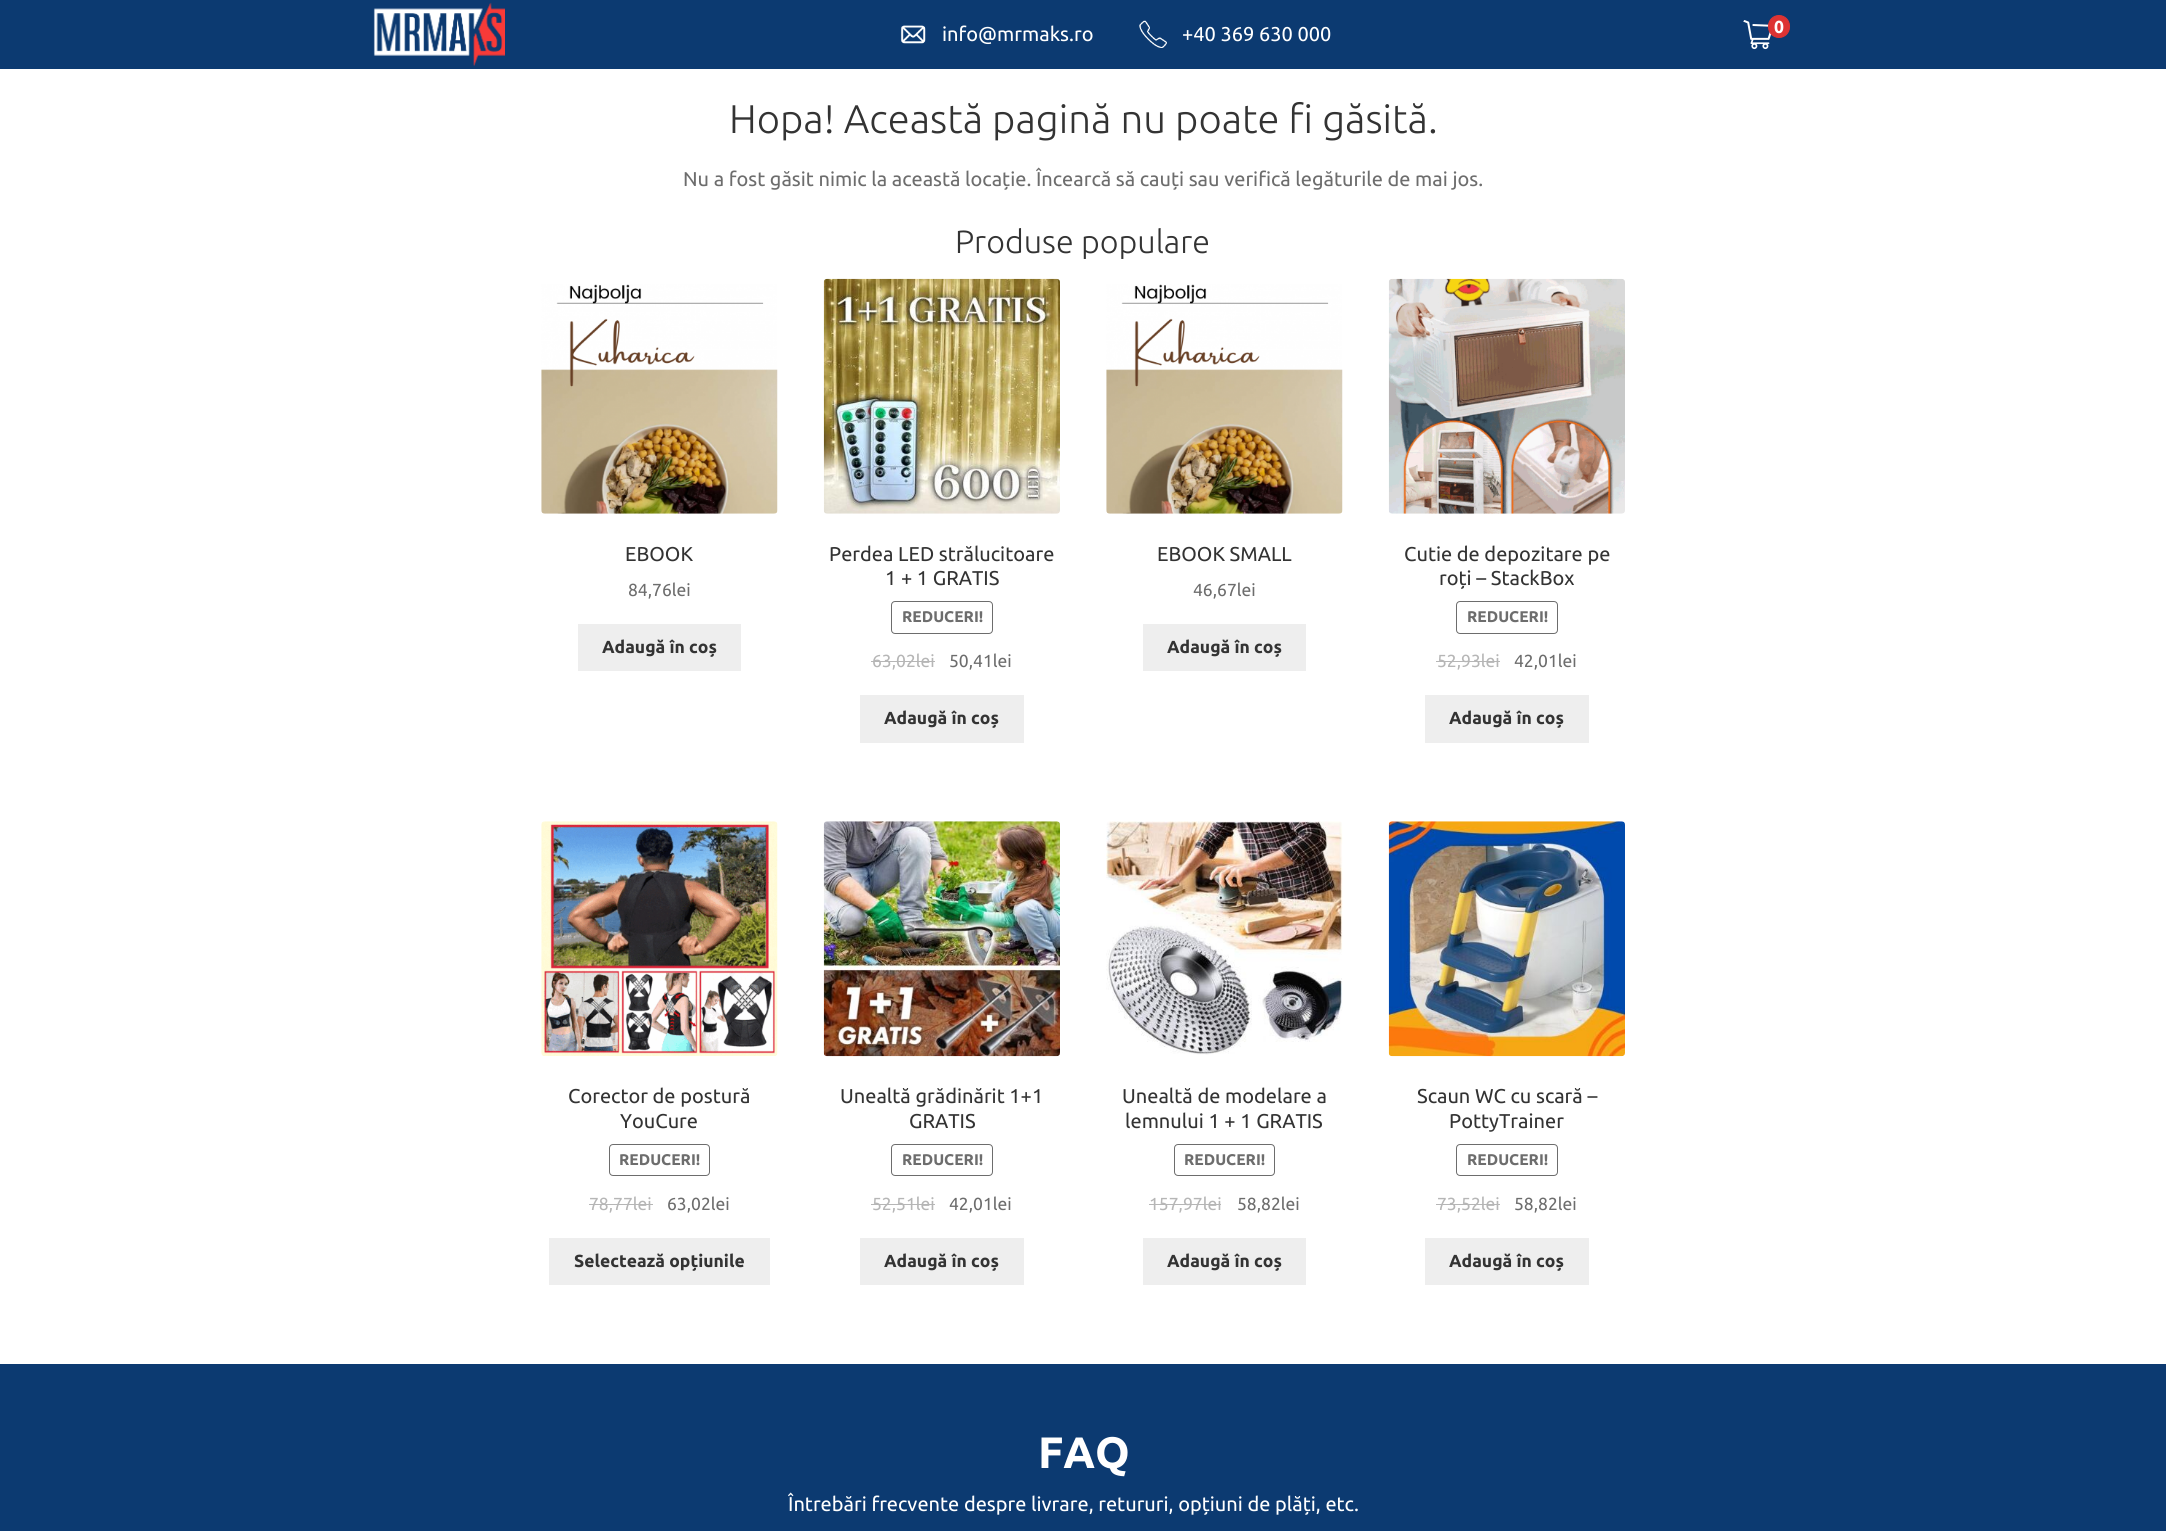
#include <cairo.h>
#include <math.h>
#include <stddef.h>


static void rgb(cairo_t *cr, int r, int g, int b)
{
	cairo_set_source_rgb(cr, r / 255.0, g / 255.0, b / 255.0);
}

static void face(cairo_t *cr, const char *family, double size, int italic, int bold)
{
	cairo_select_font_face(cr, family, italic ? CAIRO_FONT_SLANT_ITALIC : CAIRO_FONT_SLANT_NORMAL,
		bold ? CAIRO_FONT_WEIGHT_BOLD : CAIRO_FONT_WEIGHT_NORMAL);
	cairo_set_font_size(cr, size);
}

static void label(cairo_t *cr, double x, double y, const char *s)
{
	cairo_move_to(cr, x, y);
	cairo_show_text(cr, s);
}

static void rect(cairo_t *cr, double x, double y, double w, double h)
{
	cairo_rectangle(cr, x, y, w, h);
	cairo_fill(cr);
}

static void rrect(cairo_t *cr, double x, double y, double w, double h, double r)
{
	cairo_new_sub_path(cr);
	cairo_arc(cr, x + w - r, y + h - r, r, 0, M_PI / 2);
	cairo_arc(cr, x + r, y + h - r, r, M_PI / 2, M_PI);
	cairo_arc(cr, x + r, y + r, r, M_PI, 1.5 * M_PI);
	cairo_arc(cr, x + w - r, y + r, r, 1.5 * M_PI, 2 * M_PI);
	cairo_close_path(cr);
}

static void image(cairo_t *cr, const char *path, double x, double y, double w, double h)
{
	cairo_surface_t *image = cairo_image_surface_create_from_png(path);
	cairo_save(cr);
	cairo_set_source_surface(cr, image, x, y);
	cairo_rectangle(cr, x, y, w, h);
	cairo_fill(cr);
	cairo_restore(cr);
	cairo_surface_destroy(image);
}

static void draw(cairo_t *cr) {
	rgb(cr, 255, 255, 255);
	cairo_paint(cr);
	rgb(cr, 12, 58, 113);
	rect(cr, 0, 0, 2166, 69);
	image(cr, "image0.png", 373, 2, 132, 64);
	image(cr, "image1.png", 900, 25, 26, 19);
	face(cr, "Ubuntu", 20, 0, 0);
	rgb(cr, 255, 255, 255);
	label(cr, 942, 41, "info@mrmaks.ro");
	image(cr, "image2.png", 1139, 20, 28, 28);
	label(cr, 1182, 41, "+40 369 630 000");
	image(cr, "image3.png", 1743, 20, 29, 30);
	rgb(cr, 221, 51, 51);
	rrect(cr, 1768.5, 15.5, 21, 22, 10.5);
	cairo_fill_preserve(cr);
	cairo_set_line_width(cr, 1);
	cairo_stroke(cr);
	face(cr, "Ubuntu", 17.5, 0, 1);
	rgb(cr, 255, 255, 255);
	label(cr, 1774, 33, "0");
	face(cr, "Ubuntu Light", 40, 0, 0);
	rgb(cr, 51, 51, 51);
	label(cr, 729, 133, "Hopa! Această pagină nu poate fi găsită.");
	face(cr, "Ubuntu", 20, 0, 0);
	rgb(cr, 109, 109, 109);
	label(cr, 683, 186, "Nu a fost găsit nimic la această locație. Încearcă să cauți sau verifică legăturile de mai jos.");
	face(cr, "Ubuntu Light", 32.25, 0, 0);
	rgb(cr, 51, 51, 51);
	label(cr, 955, 253, "Produse populare");
	image(cr, "image4.png", 541, 284, 237, 230);
	face(cr, "Ubuntu", 20, 0, 0);
	label(cr, 625, 561, "EBOOK");
	face(cr, "Ubuntu", 17.5, 0, 0);
	rgb(cr, 109, 109, 109);
	label(cr, 628, 596, "84,76lei");
	rgb(cr, 238, 238, 238);
	rect(cr, 578, 624, 163, 47);
	face(cr, "Ubuntu", 17.5, 0, 1);
	rgb(cr, 51, 51, 51);
	label(cr, 602, 653, "Adaugă în coș");
	image(cr, "image5.png", 823, 278, 237, 236);
	face(cr, "Ubuntu", 20, 0, 0);
	label(cr, 829, 561, "Perdea LED strălucitoare");
	label(cr, 885, 585, "1 + 1 GRATIS");
	rrect(cr, 891.5, 601.5, 101, 32, 3.5);
	rgb(cr, 109, 109, 109);
	cairo_stroke(cr);
	face(cr, "Ubuntu", 15.5, 0, 1);
	label(cr, 902, 622, "REDUCERI!");
	face(cr, "Ubuntu", 17.5, 0, 0);
	rgb(cr, 182, 182, 182);
	label(cr, 872, 667, "63,02lei");
	rect(cr, 871, 661, 64, 1);
	rgb(cr, 109, 109, 109);
	label(cr, 949, 667, "50,41lei");
	rgb(cr, 238, 238, 238);
	rect(cr, 860, 695, 164, 48);
	face(cr, "Ubuntu", 17.5, 0, 1);
	rgb(cr, 51, 51, 51);
	label(cr, 884, 724, "Adaugă în coș");
	image(cr, "image6.png", 1106, 284, 237, 230);
	face(cr, "Ubuntu", 20, 0, 0);
	label(cr, 1157, 561, "EBOOK SMALL");
	face(cr, "Ubuntu", 17.5, 0, 0);
	rgb(cr, 109, 109, 109);
	label(cr, 1193, 596, "46,67lei");
	rgb(cr, 238, 238, 238);
	rect(cr, 1143, 624, 163, 47);
	face(cr, "Ubuntu", 17.5, 0, 1);
	rgb(cr, 51, 51, 51);
	label(cr, 1167, 653, "Adaugă în coș");
	image(cr, "image7.png", 1388, 278, 237, 236);
	face(cr, "Ubuntu", 20, 0, 0);
	label(cr, 1404, 561, "Cutie de depozitare pe");
	label(cr, 1439, 585, "roți – StackBox");
	rrect(cr, 1456.5, 601.5, 101, 32, 3.5);
	rgb(cr, 109, 109, 109);
	cairo_stroke(cr);
	face(cr, "Ubuntu", 15.5, 0, 1);
	label(cr, 1467, 622, "REDUCERI!");
	face(cr, "Ubuntu", 17.5, 0, 0);
	rgb(cr, 182, 182, 182);
	label(cr, 1437, 667, "52,93lei");
	rect(cr, 1436, 661, 64, 1);
	rgb(cr, 109, 109, 109);
	label(cr, 1514, 667, "42,01lei");
	rgb(cr, 238, 238, 238);
	rect(cr, 1425, 695, 164, 48);
	face(cr, "Ubuntu", 17.5, 0, 1);
	rgb(cr, 51, 51, 51);
	label(cr, 1449, 724, "Adaugă în coș");
	image(cr, "image8.png", 541, 821, 237, 235);
	face(cr, "Ubuntu", 20, 0, 0);
	label(cr, 568, 1103, "Corector de postură");
	label(cr, 620, 1128, "YouCure");
	rrect(cr, 609.5, 1144.5, 100, 31, 3.5);
	rgb(cr, 109, 109, 109);
	cairo_stroke(cr);
	face(cr, "Ubuntu", 15.5, 0, 1);
	label(cr, 619, 1165, "REDUCERI!");
	face(cr, "Ubuntu", 17.5, 0, 0);
	rgb(cr, 182, 182, 182);
	label(cr, 589, 1210, "78,77lei");
	rect(cr, 589, 1204, 64, 1);
	rgb(cr, 109, 109, 109);
	label(cr, 667, 1210, "63,02lei");
	rgb(cr, 238, 238, 238);
	rect(cr, 549, 1238, 221, 47);
	face(cr, "Ubuntu", 17.5, 0, 1);
	rgb(cr, 51, 51, 51);
	label(cr, 574, 1267, "Selectează opțiunile");
	image(cr, "image9.png", 823, 821, 237, 236);
	face(cr, "Ubuntu", 20, 0, 0);
	label(cr, 840, 1103, "Unealtă grădinărit 1+1");
	label(cr, 909, 1128, "GRATIS");
	rrect(cr, 891.5, 1144.5, 101, 31, 3.5);
	rgb(cr, 109, 109, 109);
	cairo_stroke(cr);
	face(cr, "Ubuntu", 15.5, 0, 1);
	label(cr, 902, 1165, "REDUCERI!");
	face(cr, "Ubuntu", 17.5, 0, 0);
	rgb(cr, 182, 182, 182);
	label(cr, 872, 1210, "52,51lei");
	rect(cr, 871, 1204, 64, 1);
	rgb(cr, 109, 109, 109);
	label(cr, 949, 1210, "42,01lei");
	rgb(cr, 238, 238, 238);
	rect(cr, 860, 1238, 164, 47);
	face(cr, "Ubuntu", 17.5, 0, 1);
	rgb(cr, 51, 51, 51);
	label(cr, 884, 1267, "Adaugă în coș");
	image(cr, "image10.png", 1106, 821, 237, 234);
	face(cr, "Ubuntu", 20, 0, 0);
	label(cr, 1122, 1103, "Unealtă de modelare a");
	label(cr, 1125, 1128, "lemnului 1 + 1 GRATIS");
	rrect(cr, 1174.5, 1144.5, 100, 31, 3.5);
	rgb(cr, 109, 109, 109);
	cairo_stroke(cr);
	face(cr, "Ubuntu", 15.5, 0, 1);
	label(cr, 1184, 1165, "REDUCERI!");
	face(cr, "Ubuntu", 17.5, 0, 0);
	rgb(cr, 182, 182, 182);
	label(cr, 1149, 1210, "157,97lei");
	rect(cr, 1149, 1204, 72, 1);
	rgb(cr, 109, 109, 109);
	label(cr, 1237, 1210, "58,82lei");
	rgb(cr, 238, 238, 238);
	rect(cr, 1143, 1238, 163, 47);
	face(cr, "Ubuntu", 17.5, 0, 1);
	rgb(cr, 51, 51, 51);
	label(cr, 1167, 1267, "Adaugă în coș");
	image(cr, "image11.png", 1388, 821, 237, 236);
	face(cr, "Ubuntu", 20, 0, 0);
	label(cr, 1417, 1103, "Scaun WC cu scară –");
	label(cr, 1449, 1128, "PottyTrainer");
	rrect(cr, 1456.5, 1144.5, 101, 31, 3.5);
	rgb(cr, 109, 109, 109);
	cairo_stroke(cr);
	face(cr, "Ubuntu", 15.5, 0, 1);
	label(cr, 1467, 1165, "REDUCERI!");
	face(cr, "Ubuntu", 17.5, 0, 0);
	rgb(cr, 182, 182, 182);
	label(cr, 1437, 1210, "73,52lei");
	rect(cr, 1436, 1204, 64, 1);
	rgb(cr, 109, 109, 109);
	label(cr, 1514, 1210, "58,82lei");
	rgb(cr, 238, 238, 238);
	rect(cr, 1425, 1238, 164, 47);
	face(cr, "Ubuntu", 17.5, 0, 1);
	rgb(cr, 51, 51, 51);
	label(cr, 1449, 1267, "Adaugă în coș");
	rgb(cr, 12, 58, 113);
	rect(cr, 0, 1364, 2166, 167);
	face(cr, "Ubuntu", 44, 0, 1);
	rgb(cr, 255, 255, 255);
	label(cr, 1038, 1468, "FAQ");
	face(cr, "Ubuntu", 20, 0, 0);
	label(cr, 788, 1511, "Întrebări frecvente despre livrare, retururi, opțiuni de plăți, etc.");
}

int main(void) {
	cairo_surface_t *surface = cairo_image_surface_create(CAIRO_FORMAT_RGB24, 2166, 1531);
	cairo_t *cr = cairo_create(surface);
	cairo_font_options_t *options = cairo_font_options_create();
	cairo_font_options_set_hint_metrics(options, CAIRO_HINT_METRICS_OFF);
	cairo_font_options_set_hint_style(options, CAIRO_HINT_STYLE_NONE);
	cairo_set_font_options(cr, options);
	cairo_set_miter_limit(cr, 4);
	draw(cr);
	cairo_surface_write_to_png(surface, "render.png");
	cairo_font_options_destroy(options);
	cairo_destroy(cr);
	cairo_surface_destroy(surface);
	return 0;
}
